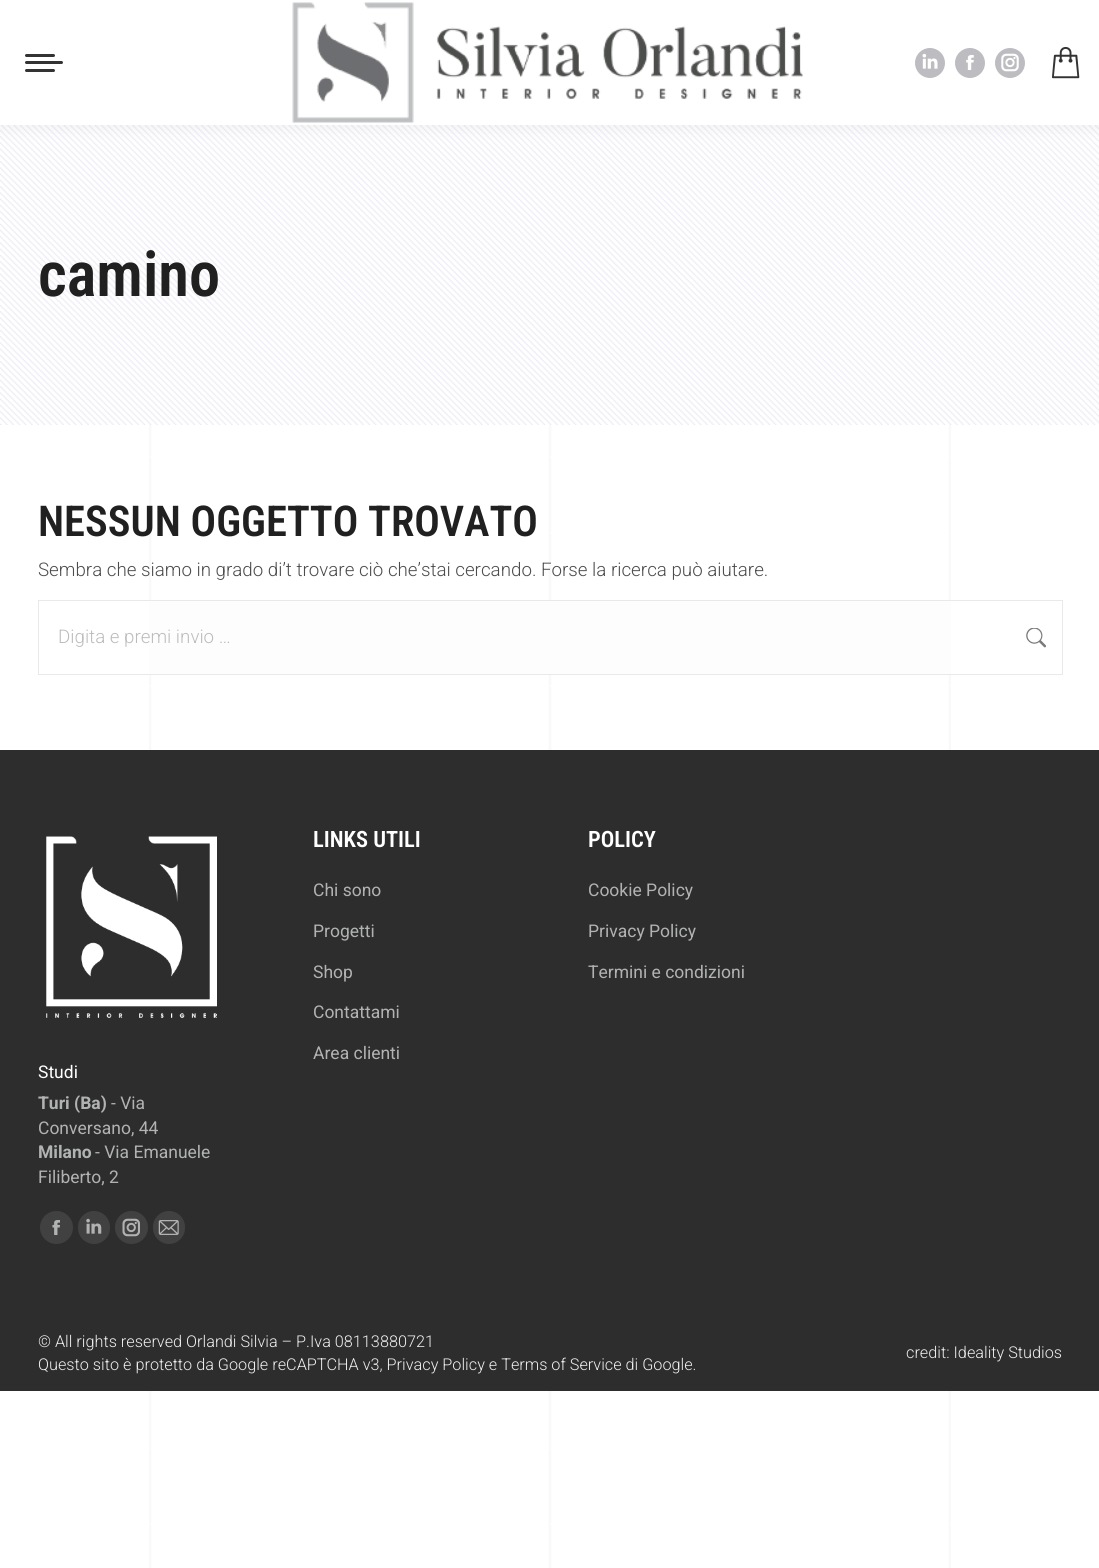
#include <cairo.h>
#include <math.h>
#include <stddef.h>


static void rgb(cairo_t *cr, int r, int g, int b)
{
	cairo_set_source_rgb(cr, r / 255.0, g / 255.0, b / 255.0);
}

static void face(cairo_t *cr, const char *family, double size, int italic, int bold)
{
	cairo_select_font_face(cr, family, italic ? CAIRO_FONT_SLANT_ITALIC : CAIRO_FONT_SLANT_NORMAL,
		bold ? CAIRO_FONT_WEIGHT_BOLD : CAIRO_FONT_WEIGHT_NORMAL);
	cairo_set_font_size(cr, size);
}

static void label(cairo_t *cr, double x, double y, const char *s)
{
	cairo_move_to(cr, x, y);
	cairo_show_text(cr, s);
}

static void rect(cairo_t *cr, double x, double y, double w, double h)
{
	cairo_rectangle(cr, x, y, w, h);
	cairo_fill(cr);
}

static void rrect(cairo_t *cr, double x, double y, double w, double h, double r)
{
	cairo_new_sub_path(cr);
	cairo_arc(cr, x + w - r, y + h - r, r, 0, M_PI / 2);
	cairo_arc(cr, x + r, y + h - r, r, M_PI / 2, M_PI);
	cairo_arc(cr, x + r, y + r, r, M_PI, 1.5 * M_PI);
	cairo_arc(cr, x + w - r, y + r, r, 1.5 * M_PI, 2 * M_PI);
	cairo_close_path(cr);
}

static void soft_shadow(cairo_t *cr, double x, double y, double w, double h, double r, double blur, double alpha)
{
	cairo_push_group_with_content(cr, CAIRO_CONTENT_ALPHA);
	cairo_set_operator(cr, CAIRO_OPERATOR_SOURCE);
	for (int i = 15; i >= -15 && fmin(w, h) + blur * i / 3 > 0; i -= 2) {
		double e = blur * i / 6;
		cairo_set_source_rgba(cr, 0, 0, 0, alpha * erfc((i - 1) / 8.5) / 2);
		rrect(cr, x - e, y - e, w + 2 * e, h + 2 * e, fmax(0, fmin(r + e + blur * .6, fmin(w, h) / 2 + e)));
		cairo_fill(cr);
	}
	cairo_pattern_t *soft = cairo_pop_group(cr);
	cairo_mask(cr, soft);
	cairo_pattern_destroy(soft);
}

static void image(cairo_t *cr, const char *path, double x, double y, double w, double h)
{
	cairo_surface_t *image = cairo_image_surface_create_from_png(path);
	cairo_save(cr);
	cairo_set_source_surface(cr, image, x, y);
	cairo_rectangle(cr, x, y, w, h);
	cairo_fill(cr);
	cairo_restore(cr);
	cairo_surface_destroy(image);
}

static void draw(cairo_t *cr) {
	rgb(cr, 255, 255, 255);
	cairo_paint(cr);
	image(cr, "image5.png", 0, 125, 1099, 300);
	rgb(cr, 0, 0, 0);
	soft_shadow(cr, -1, -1, 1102, 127, 0, 9.5, 0.07);
	rgb(cr, 255, 255, 255);
	rect(cr, 0, 0, 1099, 125);
	rgb(cr, 51, 51, 51);
	rrect(cr, 25, 54, 30, 3, 1.5);
	cairo_fill(cr);
	rrect(cr, 25, 61, 38, 3, 1.5);
	cairo_fill(cr);
	rrect(cr, 25, 69, 30, 3, 1.5);
	cairo_fill(cr);
	image(cr, "image0.png", 292, 2, 511, 122);
	rgb(cr, 189, 189, 193);
	cairo_arc(cr, 930, 63, 15, 0, 2 * M_PI);
	cairo_fill(cr);
	image(cr, "image1.png", 922, 53, 16, 16);
	cairo_arc(cr, 970, 63, 15, 0, 2 * M_PI);
	cairo_fill(cr);
	image(cr, "image2.png", 966, 55, 8, 15);
	cairo_arc(cr, 1010, 63, 15, 0, 2 * M_PI);
	cairo_fill(cr);
	image(cr, "image3.png", 1001, 53, 18, 19);
	image(cr, "image4.png", 1052, 46, 28, 33);
	face(cr, "Roboto Condensed SemiBold", 62.5, 0, 0);
	rgb(cr, 32, 32, 32);
	label(cr, 38, 296, "camino");
	image(cr, "image6.png", 149, 425, 802, 1143);
	face(cr, "Roboto Condensed SemiBold", 42.5, 0, 0);
	label(cr, 38, 536, "NESSUN OGGETTO TROVATO");
	face(cr, "Roboto Light", 18.75, 0, 0);
	rgb(cr, 76, 76, 76);
	label(cr, 38, 576, "Sembra che siamo in grado di’t trovare ciò che’stai cercando. Forse la ricerca può aiutare.");
	rgb(cr, 253, 253, 253);
	rect(cr, 149, 601, 802, 73);
	cairo_rectangle(cr, 38.5, 600.5, 1024, 74);
	rgb(cr, 233, 233, 233);
	cairo_set_line_width(cr, 1);
	cairo_stroke(cr);
	rgb(cr, 188, 188, 188);
	label(cr, 58, 643, "Digita e premi invio …");
	image(cr, "image7.png", 1026, 628, 20, 20);
	rgb(cr, 45, 45, 45);
	rect(cr, 0, 750, 1099, 641);
	face(cr, "Roboto Condensed SemiBold", 22.5, 0, 0);
	rgb(cr, 255, 255, 255);
	label(cr, 313, 847, "LINKS UTILI");
	face(cr, "Roboto", 17.5, 0, 0);
	rgb(cr, 177, 178, 178);
	label(cr, 313, 896, "Chi sono");
	label(cr, 313, 937, "Progetti");
	label(cr, 313, 978, "Shop");
	label(cr, 313, 1018, "Contattami");
	label(cr, 313, 1059, "Area clienti");
	face(cr, "Roboto Condensed SemiBold", 22.5, 0, 0);
	rgb(cr, 255, 255, 255);
	label(cr, 588, 847, "POLICY");
	face(cr, "Roboto", 17.5, 0, 0);
	rgb(cr, 177, 178, 178);
	label(cr, 588, 896, "Cookie Policy");
	label(cr, 588, 937, "Privacy Policy");
	label(cr, 588, 978, "Termini e condizioni");
	image(cr, "image8.png", 46, 836, 171, 182);
	rgb(cr, 255, 255, 255);
	label(cr, 38, 1078, "Studi");
	face(cr, "Roboto", 17.5, 0, 1);
	rgb(cr, 177, 178, 178);
	label(cr, 38, 1109, "Turi (Ba)");
	face(cr, "Roboto", 17.5, 0, 0);
	label(cr, 111, 1109, "- Via");
	label(cr, 38, 1134, "Conversano, 44");
	face(cr, "Roboto", 17.5, 0, 1);
	label(cr, 38, 1158, "Milano");
	face(cr, "Roboto", 17.5, 0, 0);
	label(cr, 95, 1158, "- Via Emanuele");
	label(cr, 38, 1183, "Filiberto, 2");
	rgb(cr, 65, 65, 65);
	cairo_new_path(cr);
	cairo_arc(cr, 56.5, 1227.5, 16.5, 0, 2 * M_PI);
	cairo_fill(cr);
	image(cr, "image9.png", 52, 1220, 8, 15);
	rrect(cr, 78, 1211, 32, 33, 16);
	cairo_fill(cr);
	image(cr, "image10.png", 86, 1218, 16, 16);
	cairo_arc(cr, 131.5, 1227.5, 16.5, 0, 2 * M_PI);
	cairo_fill(cr);
	image(cr, "image11.png", 122, 1218, 18, 19);
	rrect(cr, 153, 1211, 32, 33, 16);
	cairo_fill(cr);
	image(cr, "image12.png", 158, 1220, 21, 15);
	face(cr, "Roboto Light", 16.25, 0, 0);
	rgb(cr, 238, 238, 238);
	label(cr, 38, 1347, "© All rights reserved Orlandi Silvia – P.Iva 08113880721");
	label(cr, 38, 1370, "Questo sito è protetto da Google reCAPTCHA v3, Privacy Policy e Terms of Service di Google.");
	label(cr, 906, 1358, "credit: Ideality Studios");
}

int main(void) {
	cairo_surface_t *surface = cairo_image_surface_create(CAIRO_FORMAT_RGB24, 1099, 1568);
	cairo_t *cr = cairo_create(surface);
	cairo_font_options_t *options = cairo_font_options_create();
	cairo_font_options_set_hint_metrics(options, CAIRO_HINT_METRICS_OFF);
	cairo_font_options_set_hint_style(options, CAIRO_HINT_STYLE_NONE);
	cairo_set_font_options(cr, options);
	cairo_set_miter_limit(cr, 4);
	draw(cr);
	cairo_surface_write_to_png(surface, "render.png");
	cairo_font_options_destroy(options);
	cairo_destroy(cr);
	cairo_surface_destroy(surface);
	return 0;
}
